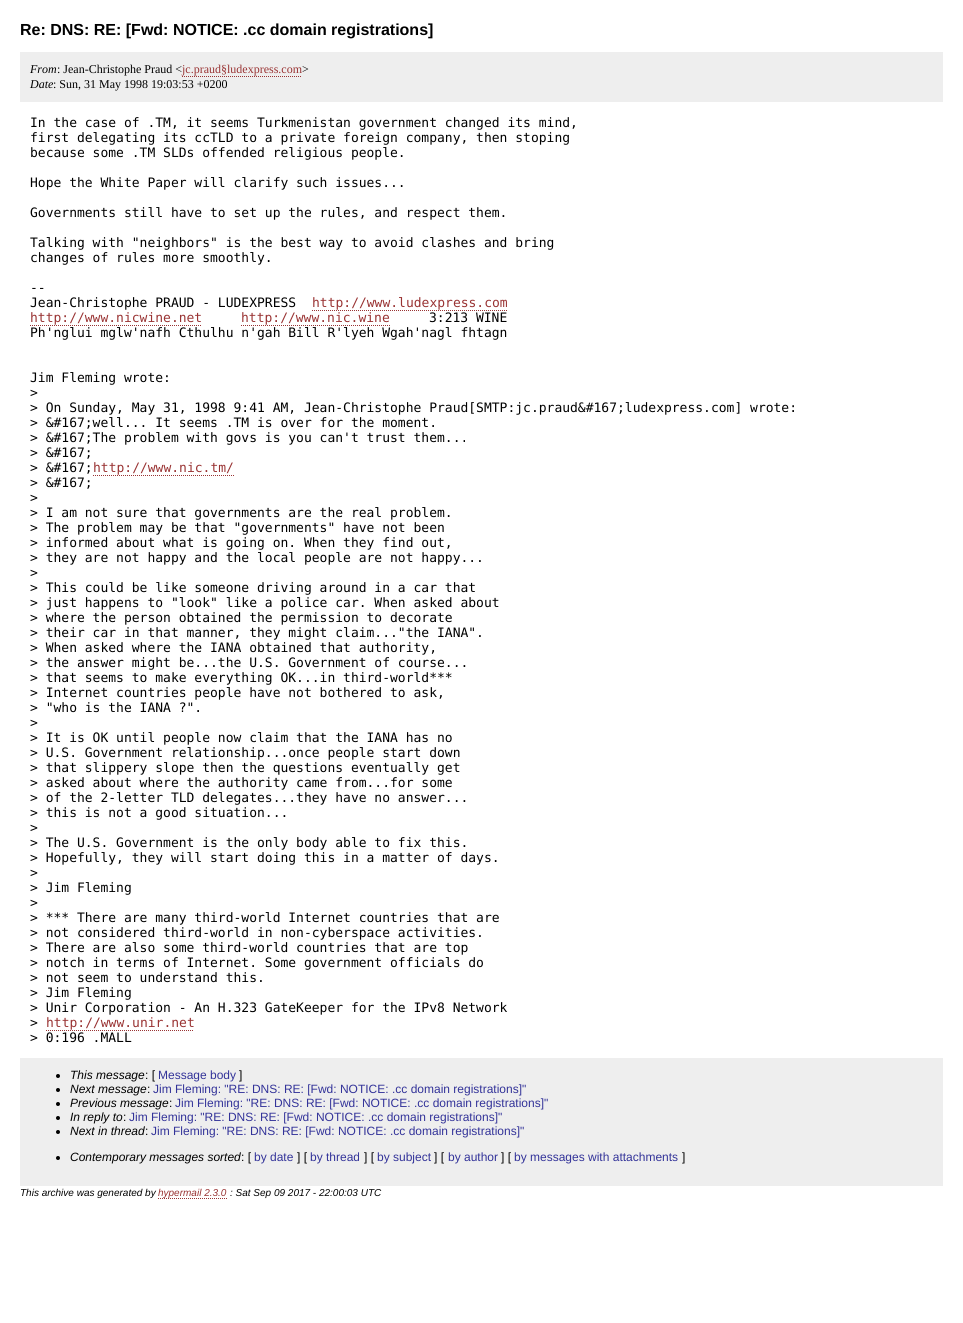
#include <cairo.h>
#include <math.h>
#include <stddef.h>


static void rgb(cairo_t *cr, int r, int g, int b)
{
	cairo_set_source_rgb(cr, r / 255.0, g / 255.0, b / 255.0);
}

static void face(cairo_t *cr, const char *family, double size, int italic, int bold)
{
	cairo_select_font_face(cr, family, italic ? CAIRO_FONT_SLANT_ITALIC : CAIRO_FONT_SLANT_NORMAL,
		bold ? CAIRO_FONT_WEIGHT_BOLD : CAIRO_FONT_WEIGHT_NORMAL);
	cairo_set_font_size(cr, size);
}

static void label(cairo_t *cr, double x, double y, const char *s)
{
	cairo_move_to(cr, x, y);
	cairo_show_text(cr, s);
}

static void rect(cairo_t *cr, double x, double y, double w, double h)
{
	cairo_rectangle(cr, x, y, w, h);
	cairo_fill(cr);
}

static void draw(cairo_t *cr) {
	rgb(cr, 255, 255, 255);
	cairo_paint(cr);
	face(cr, "Liberation Sans", 16, 0, 1);
	rgb(cr, 0, 0, 0);
	label(cr, 20, 35, "Re: DNS: RE: [Fwd: NOTICE: .cc domain registrations]");
	rgb(cr, 238, 238, 238);
	rect(cr, 20, 52, 923, 50);
	face(cr, "Liberation Serif", 12, 1, 0);
	rgb(cr, 0, 0, 0);
	label(cr, 30, 73, "From");
	face(cr, "Liberation Serif", 12, 0, 0);
	label(cr, 57, 73, ": Jean-Christophe Praud <");
	cairo_new_path(cr);
	cairo_move_to(cr, 182, 76.5);
	cairo_line_to(cr, 302, 76.5);
	rgb(cr, 153, 51, 51);
	cairo_set_line_width(cr, 1);
	cairo_set_dash(cr, (double[]){1, 1}, 2, 0);
	cairo_stroke(cr);
	label(cr, 182, 73, "jc.praud§ludexpress.com");
	rgb(cr, 0, 0, 0);
	label(cr, 302, 73, ">");
	face(cr, "Liberation Serif", 12, 1, 0);
	label(cr, 30, 88, "Date");
	face(cr, "Liberation Serif", 12, 0, 0);
	label(cr, 53, 88, ": Sun, 31 May 1998 19:03:53 +0200");
	face(cr, "DejaVu Sans Mono", 13, 0, 0);
	label(cr, 30, 127, "In the case of .TM, it seems Turkmenistan government changed its mind,");
	label(cr, 30, 142, "first delegating its ccTLD to a private foreign company, then stoping");
	label(cr, 30, 157, "because some .TM SLDs offended religious people.");
	label(cr, 30, 187, "Hope the White Paper will clarify such issues...");
	label(cr, 30, 217, "Governments still have to set up the rules, and respect them.");
	label(cr, 30, 247, "Talking with \"neighbors\" is the best way to avoid clashes and bring");
	label(cr, 30, 262, "changes of rules more smoothly.");
	label(cr, 30, 292, "--");
	label(cr, 30, 307, "Jean-Christophe PRAUD - LUDEXPRESS");
	rgb(cr, 153, 51, 51);
	label(cr, 312, 307, "http://www.ludexpress.com");
	cairo_new_path(cr);
	cairo_move_to(cr, 312, 310.5);
	cairo_line_to(cr, 507, 310.5);
	cairo_stroke(cr);
	label(cr, 30, 322, "http://www.nicwine.net");
	cairo_new_path(cr);
	cairo_move_to(cr, 30, 325.5);
	cairo_line_to(cr, 202, 325.5);
	cairo_stroke(cr);
	label(cr, 241, 322, "http://www.nic.wine");
	cairo_new_path(cr);
	cairo_move_to(cr, 241, 325.5);
	cairo_line_to(cr, 390, 325.5);
	cairo_stroke(cr);
	rgb(cr, 0, 0, 0);
	label(cr, 429, 322, "3:213 WINE");
	label(cr, 30, 337, "Ph'nglui mglw'nafh Cthulhu n'gah Bill R'lyeh Wgah'nagl fhtagn");
	label(cr, 30, 382, "Jim Fleming wrote:");
	label(cr, 30, 397, ">");
	label(cr, 30, 412, "> On Sunday, May 31, 1998 9:41 AM, Jean-Christophe Praud[SMTP:jc.praud&#167;ludexpress.com] wrote:");
	label(cr, 30, 427, "> &#167;well... It seems .TM is over for the moment.");
	label(cr, 30, 442, "> &#167;The problem with govs is you can't trust them...");
	label(cr, 30, 457, "> &#167;");
	label(cr, 30, 472, "> &#167;");
	rgb(cr, 153, 51, 51);
	label(cr, 93, 472, "http://www.nic.tm/");
	cairo_new_path(cr);
	cairo_move_to(cr, 93, 475.5);
	cairo_line_to(cr, 234, 475.5);
	cairo_stroke(cr);
	rgb(cr, 0, 0, 0);
	label(cr, 30, 487, "> &#167;");
	label(cr, 30, 502, ">");
	label(cr, 30, 517, "> I am not sure that governments are the real problem.");
	label(cr, 30, 532, "> The problem may be that \"governments\" have not been");
	label(cr, 30, 547, "> informed about what is going on. When they find out,");
	label(cr, 30, 562, "> they are not happy and the local people are not happy...");
	label(cr, 30, 577, ">");
	label(cr, 30, 592, "> This could be like someone driving around in a car that");
	label(cr, 30, 607, "> just happens to \"look\" like a police car. When asked about");
	label(cr, 30, 622, "> where the person obtained the permission to decorate");
	label(cr, 30, 637, "> their car in that manner, they might claim...\"the IANA\".");
	label(cr, 30, 652, "> When asked where the IANA obtained that authority,");
	label(cr, 30, 667, "> the answer might be...the U.S. Government of course...");
	label(cr, 30, 682, "> that seems to make everything OK...in third-world***");
	label(cr, 30, 697, "> Internet countries people have not bothered to ask,");
	label(cr, 30, 712, "> \"who is the IANA ?\".");
	label(cr, 30, 727, ">");
	label(cr, 30, 742, "> It is OK until people now claim that the IANA has no");
	label(cr, 30, 757, "> U.S. Government relationship...once people start down");
	label(cr, 30, 772, "> that slippery slope then the questions eventually get");
	label(cr, 30, 787, "> asked about where the authority came from...for some");
	label(cr, 30, 802, "> of the 2-letter TLD delegates...they have no answer...");
	label(cr, 30, 817, "> this is not a good situation...");
	label(cr, 30, 832, ">");
	label(cr, 30, 847, "> The U.S. Government is the only body able to fix this.");
	label(cr, 30, 862, "> Hopefully, they will start doing this in a matter of days.");
	label(cr, 30, 877, ">");
	label(cr, 30, 892, "> Jim Fleming");
	label(cr, 30, 907, ">");
	label(cr, 30, 922, "> *** There are many third-world Internet countries that are");
	label(cr, 30, 937, "> not considered third-world in non-cyberspace activities.");
	label(cr, 30, 952, "> There are also some third-world countries that are top");
	label(cr, 30, 967, "> notch in terms of Internet. Some government officials do");
	label(cr, 30, 982, "> not seem to understand this.");
	label(cr, 30, 997, "> Jim Fleming");
	label(cr, 30, 1012, "> Unir Corporation - An H.323 GateKeeper for the IPv8 Network");
	label(cr, 30, 1027, ">");
	rgb(cr, 153, 51, 51);
	label(cr, 46, 1027, "http://www.unir.net");
	cairo_new_path(cr);
	cairo_move_to(cr, 46, 1030.5);
	cairo_line_to(cr, 194, 1030.5);
	cairo_stroke(cr);
	rgb(cr, 0, 0, 0);
	label(cr, 30, 1042, "> 0:196 .MALL");
	rgb(cr, 238, 238, 238);
	rect(cr, 20, 1058, 923, 128);
	rgb(cr, 0, 0, 0);
	cairo_new_path(cr);
	cairo_arc(cr, 58, 1076, 2, 0, 2 * M_PI);
	cairo_fill(cr);
	face(cr, "Liberation Sans", 12, 1, 0);
	label(cr, 70, 1079, "This message");
	face(cr, "Liberation Sans", 12, 0, 0);
	label(cr, 145, 1079, ": [");
	rgb(cr, 51, 51, 153);
	label(cr, 158, 1079, "Message body");
	rgb(cr, 0, 0, 0);
	label(cr, 239, 1079, "]");
	cairo_new_path(cr);
	cairo_arc(cr, 58, 1090, 2, 0, 2 * M_PI);
	cairo_fill(cr);
	face(cr, "Liberation Sans", 12, 1, 0);
	label(cr, 70, 1093, "Next message");
	face(cr, "Liberation Sans", 12, 0, 0);
	label(cr, 147, 1093, ":");
	rgb(cr, 51, 51, 153);
	label(cr, 153, 1093, "Jim Fleming: \"RE: DNS: RE: [Fwd: NOTICE: .cc domain registrations]\"");
	rgb(cr, 0, 0, 0);
	cairo_new_path(cr);
	cairo_arc(cr, 58, 1104, 2, 0, 2 * M_PI);
	cairo_fill(cr);
	face(cr, "Liberation Sans", 12, 1, 0);
	label(cr, 70, 1107, "Previous message");
	face(cr, "Liberation Sans", 12, 0, 0);
	label(cr, 169, 1107, ":");
	rgb(cr, 51, 51, 153);
	label(cr, 175, 1107, "Jim Fleming: \"RE: DNS: RE: [Fwd: NOTICE: .cc domain registrations]\"");
	rgb(cr, 0, 0, 0);
	cairo_new_path(cr);
	cairo_arc(cr, 58, 1118, 2, 0, 2 * M_PI);
	cairo_fill(cr);
	face(cr, "Liberation Sans", 12, 1, 0);
	label(cr, 70, 1121, "In reply to");
	face(cr, "Liberation Sans", 12, 0, 0);
	label(cr, 123, 1121, ":");
	rgb(cr, 51, 51, 153);
	label(cr, 129, 1121, "Jim Fleming: \"RE: DNS: RE: [Fwd: NOTICE: .cc domain registrations]\"");
	rgb(cr, 0, 0, 0);
	cairo_new_path(cr);
	cairo_arc(cr, 58, 1132, 2, 0, 2 * M_PI);
	cairo_fill(cr);
	face(cr, "Liberation Sans", 12, 1, 0);
	label(cr, 70, 1135, "Next in thread");
	face(cr, "Liberation Sans", 12, 0, 0);
	label(cr, 145, 1135, ":");
	rgb(cr, 51, 51, 153);
	label(cr, 151, 1135, "Jim Fleming: \"RE: DNS: RE: [Fwd: NOTICE: .cc domain registrations]\"");
	rgb(cr, 0, 0, 0);
	cairo_new_path(cr);
	cairo_arc(cr, 58, 1158, 2, 0, 2 * M_PI);
	cairo_fill(cr);
	face(cr, "Liberation Sans", 12, 1, 0);
	label(cr, 70, 1161, "Contemporary messages sorted");
	face(cr, "Liberation Sans", 12, 0, 0);
	label(cr, 241, 1161, ": [");
	rgb(cr, 51, 51, 153);
	label(cr, 254, 1161, "by date");
	rgb(cr, 0, 0, 0);
	label(cr, 297, 1161, "] [");
	rgb(cr, 51, 51, 153);
	label(cr, 310, 1161, "by thread");
	rgb(cr, 0, 0, 0);
	label(cr, 364, 1161, "] [");
	rgb(cr, 51, 51, 153);
	label(cr, 377, 1161, "by subject");
	rgb(cr, 0, 0, 0);
	label(cr, 434, 1161, "] [");
	rgb(cr, 51, 51, 153);
	label(cr, 448, 1161, "by author");
	rgb(cr, 0, 0, 0);
	label(cr, 501, 1161, "] [");
	rgb(cr, 51, 51, 153);
	label(cr, 514, 1161, "by messages with attachments");
	rgb(cr, 0, 0, 0);
	label(cr, 682, 1161, "]");
	face(cr, "Liberation Sans", 10, 1, 0);
	label(cr, 20, 1196, "This archive was generated by");
	cairo_new_path(cr);
	cairo_move_to(cr, 158, 1198.5);
	cairo_line_to(cr, 227, 1198.5);
	rgb(cr, 153, 51, 51);
	cairo_stroke(cr);
	label(cr, 158, 1196, "hypermail 2.3.0");
	rgb(cr, 0, 0, 0);
	label(cr, 230, 1196, ": Sat Sep 09 2017 - 22:00:03 UTC");
}

int main(void) {
	cairo_surface_t *surface = cairo_image_surface_create(CAIRO_FORMAT_RGB24, 963, 1323);
	cairo_t *cr = cairo_create(surface);
	cairo_font_options_t *options = cairo_font_options_create();
	cairo_font_options_set_hint_metrics(options, CAIRO_HINT_METRICS_OFF);
	cairo_font_options_set_hint_style(options, CAIRO_HINT_STYLE_NONE);
	cairo_set_font_options(cr, options);
	cairo_set_miter_limit(cr, 4);
	draw(cr);
	cairo_surface_write_to_png(surface, "render.png");
	cairo_font_options_destroy(options);
	cairo_destroy(cr);
	cairo_surface_destroy(surface);
	return 0;
}
